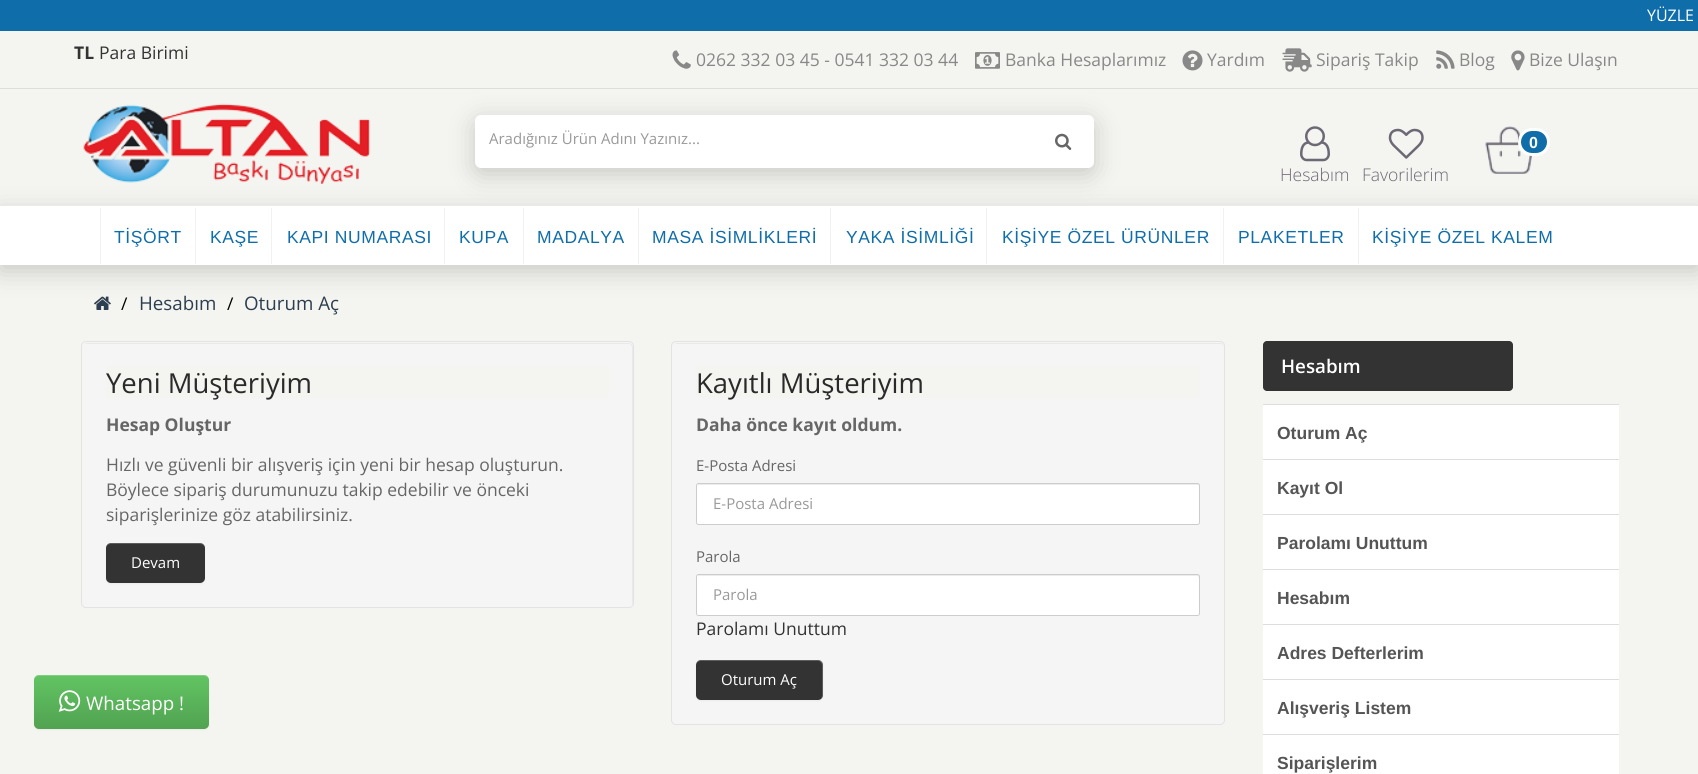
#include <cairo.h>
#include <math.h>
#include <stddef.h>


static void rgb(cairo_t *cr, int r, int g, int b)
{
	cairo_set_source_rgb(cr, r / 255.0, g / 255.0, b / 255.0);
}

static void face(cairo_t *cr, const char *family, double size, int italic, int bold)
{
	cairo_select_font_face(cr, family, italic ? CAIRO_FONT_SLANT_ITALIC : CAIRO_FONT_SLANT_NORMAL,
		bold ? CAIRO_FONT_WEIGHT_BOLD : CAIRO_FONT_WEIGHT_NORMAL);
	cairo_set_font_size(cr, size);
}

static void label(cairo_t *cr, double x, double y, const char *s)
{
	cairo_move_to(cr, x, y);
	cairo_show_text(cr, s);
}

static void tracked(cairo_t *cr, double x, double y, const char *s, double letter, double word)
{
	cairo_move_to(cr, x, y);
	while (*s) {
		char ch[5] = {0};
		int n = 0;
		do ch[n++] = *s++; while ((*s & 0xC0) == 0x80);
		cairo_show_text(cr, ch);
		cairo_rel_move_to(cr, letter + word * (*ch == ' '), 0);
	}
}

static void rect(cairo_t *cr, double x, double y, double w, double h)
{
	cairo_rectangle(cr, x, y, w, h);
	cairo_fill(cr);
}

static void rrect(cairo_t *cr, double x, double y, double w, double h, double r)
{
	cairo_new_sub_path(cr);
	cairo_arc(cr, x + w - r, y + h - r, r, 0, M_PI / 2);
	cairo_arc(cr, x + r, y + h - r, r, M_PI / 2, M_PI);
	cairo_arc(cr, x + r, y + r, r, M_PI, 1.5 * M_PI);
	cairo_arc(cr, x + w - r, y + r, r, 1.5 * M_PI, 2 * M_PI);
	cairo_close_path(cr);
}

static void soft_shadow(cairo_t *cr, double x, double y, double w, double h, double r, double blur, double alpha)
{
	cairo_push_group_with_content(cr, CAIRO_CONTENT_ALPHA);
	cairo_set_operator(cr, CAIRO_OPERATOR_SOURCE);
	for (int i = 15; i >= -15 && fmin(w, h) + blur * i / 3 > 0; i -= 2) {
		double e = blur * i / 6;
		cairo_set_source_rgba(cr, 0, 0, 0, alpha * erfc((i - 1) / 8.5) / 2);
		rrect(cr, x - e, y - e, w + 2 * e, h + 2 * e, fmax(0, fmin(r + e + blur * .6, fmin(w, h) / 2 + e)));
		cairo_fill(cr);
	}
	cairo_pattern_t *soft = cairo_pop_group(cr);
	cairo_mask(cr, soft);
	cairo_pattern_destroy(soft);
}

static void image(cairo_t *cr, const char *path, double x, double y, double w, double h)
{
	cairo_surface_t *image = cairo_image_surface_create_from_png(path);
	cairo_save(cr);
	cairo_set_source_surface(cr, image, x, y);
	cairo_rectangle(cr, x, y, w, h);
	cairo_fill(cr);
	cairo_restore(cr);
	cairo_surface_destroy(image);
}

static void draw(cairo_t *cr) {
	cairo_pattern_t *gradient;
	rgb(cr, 244, 244, 240);
	cairo_paint(cr);
	rgb(cr, 15, 110, 170);
	rect(cr, 0, 0, 1698, 31);
	face(cr, "Open Sans", 16, 0, 0);
	rgb(cr, 255, 255, 255);
	label(cr, 1647, 21, "YÜZLE");
	rgb(cr, 221, 221, 221);
	rect(cr, 0, 88, 1698, 1);
	face(cr, "Open Sans", 17.5, 0, 1);
	rgb(cr, 51, 51, 51);
	label(cr, 74, 59, "TL");
	face(cr, "Open Sans", 17.5, 0, 0);
	label(cr, 99, 59, "Para Birimi");
	image(cr, "image0.png", 672, 50, 19, 19);
	rgb(cr, 136, 136, 136);
	label(cr, 696, 66, "0262 332 03 45 - 0541 332 03 44");
	image(cr, "image1.png", 975, 52, 25, 17);
	label(cr, 1005, 66, "Banka Hesaplarımız");
	image(cr, "image2.png", 1182, 50, 21, 21);
	label(cr, 1207, 66, "Yardım");
	image(cr, "image3.png", 1282, 48, 30, 24);
	label(cr, 1316, 66, "Sipariş Takip");
	image(cr, "image4.png", 1436, 50, 19, 19);
	label(cr, 1459, 66, "Blog");
	image(cr, "image5.png", 1511, 50, 14, 21);
	label(cr, 1529, 66, "Bize Ulaşın");
	image(cr, "image6.png", 83, 103, 288, 81);
	rgb(cr, 0, 0, 0);
	soft_shadow(cr, 475, 121, 619, 53, 6, 12.5, 0.18);
	rgb(cr, 255, 255, 255);
	rrect(cr, 475, 115, 619, 53, 6);
	cairo_fill(cr);
	face(cr, "Open Sans", 15, 0, 0);
	rgb(cr, 153, 153, 153);
	label(cr, 489, 144, "Aradığınız Ürün Adını Yazınız...");
	image(cr, "image7.png", 1055, 133, 17, 17);
	image(cr, "image8.png", 1485, 126, 48, 48);
	rgb(cr, 15, 110, 170);
	rrect(cr, 1519.5, 129.5, 29, 25, 12.5);
	cairo_fill_preserve(cr);
	rgb(cr, 255, 255, 255);
	cairo_set_line_width(cr, 3);
	cairo_stroke(cr);
	face(cr, "Liberation Sans", 16, 0, 1);
	label(cr, 1529, 148, "0");
	image(cr, "image9.png", 1300, 126, 30, 36);
	face(cr, "Open Sans Light", 17.5, 0, 0);
	rgb(cr, 109, 104, 117);
	label(cr, 1280, 181, "Hesabım");
	image(cr, "image10.png", 1388, 128, 36, 31);
	label(cr, 1362, 181, "Favorilerim");
	image(cr, "image11.png", 94, 296, 17, 14);
	rgb(cr, 0, 0, 0);
	soft_shadow(cr, 0, 213, 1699, 58, 0, 12.5, 0.18);
	rgb(cr, 255, 255, 255);
	rect(cr, 0, 206, 1698, 59);
	rgb(cr, 241, 241, 241);
	rect(cr, 100, 208, 1, 56);
	face(cr, "Liberation Sans", 17.5, 0, 0);
	rgb(cr, 15, 110, 170);
	tracked(cr, 114, 243, "TİŞÖRT", 0.6, 0);
	rgb(cr, 241, 241, 241);
	rect(cr, 195, 208, 1, 56);
	rgb(cr, 15, 110, 170);
	tracked(cr, 210, 243, "KAŞE", 0.6, 0);
	rgb(cr, 241, 241, 241);
	rect(cr, 271, 208, 1, 56);
	rgb(cr, 15, 110, 170);
	tracked(cr, 287, 243, "KAPI NUMARASI", 0.6, 0);
	rgb(cr, 241, 241, 241);
	rect(cr, 444, 208, 1, 56);
	rgb(cr, 15, 110, 170);
	tracked(cr, 459, 243, "KUPA", 0.6, 0);
	rgb(cr, 241, 241, 241);
	rect(cr, 523, 208, 1, 56);
	rgb(cr, 15, 110, 170);
	tracked(cr, 537, 243, "MADALYA", 0.6, 0);
	rgb(cr, 241, 241, 241);
	rect(cr, 638, 208, 1, 56);
	rgb(cr, 15, 110, 170);
	tracked(cr, 652, 243, "MASA İSİMLİKLERİ", 0.6, 0);
	rgb(cr, 241, 241, 241);
	rect(cr, 830, 208, 1, 56);
	rgb(cr, 15, 110, 170);
	tracked(cr, 846, 243, "YAKA İSİMLİĞİ", 0.6, 0);
	rgb(cr, 241, 241, 241);
	rect(cr, 986, 208, 1, 56);
	rgb(cr, 15, 110, 170);
	tracked(cr, 1002, 243, "KİŞİYE ÖZEL ÜRÜNLER", 0.6, 0);
	rgb(cr, 241, 241, 241);
	rect(cr, 1223, 208, 1, 56);
	rgb(cr, 15, 110, 170);
	tracked(cr, 1238, 243, "PLAKETLER", 0.6, 0);
	rgb(cr, 241, 241, 241);
	rect(cr, 1358, 208, 1, 56);
	rgb(cr, 15, 110, 170);
	tracked(cr, 1372, 243, "KİŞİYE ÖZEL KALEM", 0.6, 0);
	face(cr, "Open Sans", 17.5, 0, 0);
	rgb(cr, 0, 0, 0);
	label(cr, 121, 310, "/");
	face(cr, "Open Sans", 18.75, 0, 0);
	rgb(cr, 44, 62, 80);
	label(cr, 139, 310, "Hesabım");
	face(cr, "Open Sans", 17.5, 0, 0);
	rgb(cr, 0, 0, 0);
	label(cr, 227, 310, "/");
	face(cr, "Open Sans", 18.75, 0, 0);
	rgb(cr, 44, 62, 80);
	label(cr, 244, 310, "Oturum Aç");
	rgb(cr, 245, 245, 245);
	rrect(cr, 81, 341, 553, 267, 5);
	cairo_fill(cr);
	rgb(cr, 233, 233, 233);
	cairo_new_path(cr);
	cairo_move_to(cr, 86, 344);
	cairo_line_to(cr, 629, 344);
	cairo_curve_to(cr, 631, 344, 632, 346, 632, 348);
	cairo_line_to(cr, 632, 605);
	cairo_curve_to(cr, 633, 604, 633, 603, 633, 602);
	cairo_line_to(cr, 633, 347);
	cairo_curve_to(cr, 633, 345, 631, 343, 629, 343);
	cairo_line_to(cr, 87, 343);
	cairo_curve_to(cr, 86, 343, 85, 344, 84, 344);
	cairo_close_path(cr);
	cairo_fill(cr);
	rrect(cr, 81.5, 341.5, 552, 266, 4.5);
	rgb(cr, 227, 227, 227);
	cairo_set_line_width(cr, 1);
	cairo_stroke(cr);
	rgb(cr, 244, 244, 240);
	rrect(cr, 106, 366, 503, 32, 4);
	cairo_fill(cr);
	face(cr, "Open Sans", 27.5, 0, 0);
	rgb(cr, 42, 42, 42);
	label(cr, 106, 393, "Yeni Müşteriyim");
	face(cr, "Open Sans", 17.5, 0, 1);
	rgb(cr, 102, 102, 102);
	label(cr, 106, 431, "Hesap Oluştur");
	face(cr, "Open Sans", 17.5, 0, 0);
	label(cr, 106, 471, "Hızlı ve güvenli bir alışveriş için yeni bir hesap oluşturun.");
	label(cr, 106, 496, "Böylece sipariş durumunuzu takip edebilir ve önceki");
	label(cr, 106, 521, "siparişlerinize göz atabilirsiniz.");
	rgb(cr, 0, 0, 0);
	soft_shadow(cr, 106, 544, 99, 40, 5, 1, 0.05);
	rgb(cr, 51, 51, 51);
	rrect(cr, 106, 543, 99, 40, 5);
	cairo_fill(cr);
	cairo_set_source_rgba(cr, 1, 1, 1, 0.2);
	cairo_new_path(cr);
	cairo_move_to(cr, 111, 544);
	cairo_line_to(cr, 200, 544);
	cairo_curve_to(cr, 203, 544, 205, 546, 205, 549);
	cairo_curve_to(cr, 205, 539, 191, 543, 185, 543);
	cairo_line_to(cr, 126, 543);
	cairo_curve_to(cr, 120, 543, 106, 539, 106, 549);
	cairo_curve_to(cr, 106, 546, 108, 544, 111, 544);
	cairo_close_path(cr);
	cairo_fill(cr);
	face(cr, "Open Sans", 15, 0, 0);
	rgb(cr, 255, 255, 255);
	label(cr, 131, 568, "Devam");
	rgb(cr, 245, 245, 245);
	rrect(cr, 671, 341, 554, 384, 5);
	cairo_fill(cr);
	rgb(cr, 233, 233, 233);
	cairo_new_path(cr);
	cairo_move_to(cr, 676, 344);
	cairo_line_to(cr, 1220, 344);
	cairo_curve_to(cr, 1222, 344, 1224, 345, 1224, 348);
	cairo_line_to(cr, 1224, 347);
	cairo_curve_to(cr, 1224, 345, 1222, 343, 1220, 343);
	cairo_line_to(cr, 677, 343);
	cairo_curve_to(cr, 676, 343, 675, 344, 674, 344);
	cairo_close_path(cr);
	cairo_fill(cr);
	rrect(cr, 671.5, 341.5, 553, 383, 4.5);
	rgb(cr, 227, 227, 227);
	cairo_stroke(cr);
	rgb(cr, 244, 244, 240);
	rrect(cr, 696, 366, 504, 32, 4);
	cairo_fill(cr);
	face(cr, "Open Sans", 27.5, 0, 0);
	rgb(cr, 42, 42, 42);
	label(cr, 696, 393, "Kayıtlı Müşteriyim");
	face(cr, "Open Sans", 17.5, 0, 1);
	rgb(cr, 102, 102, 102);
	label(cr, 696, 431, "Daha önce kayıt oldum.");
	face(cr, "Open Sans", 15, 0, 0);
	label(cr, 696, 471, "E-Posta Adresi");
	rgb(cr, 255, 255, 255);
	rrect(cr, 696, 483, 504, 42, 2.5);
	cairo_fill(cr);
	rgb(cr, 236, 236, 236);
	cairo_new_path(cr);
	cairo_move_to(cr, 699, 485);
	cairo_line_to(cr, 1198, 485);
	cairo_line_to(cr, 1199, 486);
	cairo_curve_to(cr, 1199, 485, 1199, 484, 1198, 484);
	cairo_line_to(cr, 698, 484);
	cairo_line_to(cr, 698, 486);
	cairo_close_path(cr);
	cairo_fill(cr);
	rrect(cr, 696.5, 483.5, 503, 41, 2);
	rgb(cr, 204, 204, 204);
	cairo_stroke(cr);
	rgb(cr, 153, 153, 153);
	label(cr, 713, 509, "E-Posta Adresi");
	rgb(cr, 102, 102, 102);
	label(cr, 696, 562, "Parola");
	rgb(cr, 255, 255, 255);
	rrect(cr, 696, 574, 504, 42, 2.5);
	cairo_fill(cr);
	rgb(cr, 236, 236, 236);
	cairo_new_path(cr);
	cairo_move_to(cr, 699, 576);
	cairo_line_to(cr, 1198, 576);
	cairo_line_to(cr, 1199, 578);
	cairo_line_to(cr, 1199, 576);
	cairo_curve_to(cr, 1199, 575, 1199, 575, 1198, 575);
	cairo_line_to(cr, 699, 575);
	cairo_curve_to(cr, 698, 575, 698, 575, 698, 576);
	cairo_line_to(cr, 698, 578);
	cairo_curve_to(cr, 698, 577, 698, 576, 699, 576);
	cairo_close_path(cr);
	cairo_fill(cr);
	rrect(cr, 696.5, 574.5, 503, 41, 2);
	rgb(cr, 204, 204, 204);
	cairo_stroke(cr);
	rgb(cr, 153, 153, 153);
	label(cr, 713, 600, "Parola");
	face(cr, "Open Sans", 17.5, 0, 0);
	rgb(cr, 51, 51, 51);
	label(cr, 696, 635, "Parolamı Unuttum");
	rgb(cr, 0, 0, 0);
	soft_shadow(cr, 696, 661, 127, 40, 5, 1, 0.05);
	rgb(cr, 51, 51, 51);
	rrect(cr, 696, 660, 127, 40, 5);
	cairo_fill(cr);
	cairo_set_source_rgba(cr, 1, 1, 1, 0.2);
	cairo_new_path(cr);
	cairo_move_to(cr, 701, 661);
	cairo_line_to(cr, 818, 661);
	cairo_curve_to(cr, 820, 661, 822, 663, 822, 666);
	cairo_line_to(cr, 822, 696);
	cairo_line_to(cr, 821, 699);
	cairo_curve_to(cr, 822, 698, 823, 696, 823, 695);
	cairo_line_to(cr, 823, 665);
	cairo_curve_to(cr, 823, 662, 821, 660, 818, 660);
	cairo_line_to(cr, 701, 660);
	cairo_curve_to(cr, 698, 660, 696, 662, 696, 665);
	cairo_line_to(cr, 696, 666);
	cairo_curve_to(cr, 696, 663, 698, 661, 701, 661);
	cairo_close_path(cr);
	cairo_fill(cr);
	face(cr, "Open Sans", 15, 0, 0);
	rgb(cr, 255, 255, 255);
	label(cr, 721, 685, "Oturum Aç");
	rgb(cr, 0, 0, 0);
	soft_shadow(cr, 34, 676, 175, 54, 5, 1, 0.05);
	gradient = cairo_pattern_create_linear(121, 675, 121, 729);
	cairo_pattern_add_color_stop_rgba(gradient, 0, 0.384, 0.769, 0.384, 1);
	cairo_pattern_add_color_stop_rgba(gradient, 1, 0.318, 0.639, 0.318, 1);
	cairo_set_source(cr, gradient);
	cairo_pattern_destroy(gradient);
	rrect(cr, 34, 675, 175, 54, 5);
	cairo_fill(cr);
	cairo_set_source_rgba(cr, 1, 1, 1, 0.2);
	cairo_new_path(cr);
	cairo_move_to(cr, 39, 676);
	cairo_line_to(cr, 204, 676);
	cairo_curve_to(cr, 207, 676, 209, 678, 209, 681);
	cairo_curve_to(cr, 209, 678, 208, 676, 205, 675);
	cairo_line_to(cr, 39, 675);
	cairo_line_to(cr, 36, 676);
	cairo_curve_to(cr, 34, 677, 34, 679, 34, 681);
	cairo_curve_to(cr, 34, 678, 36, 676, 39, 676);
	cairo_close_path(cr);
	cairo_fill(cr);
	image(cr, "image12.png", 58, 690, 23, 22);
	face(cr, "Open Sans", 18.75, 0, 0);
	rgb(cr, 255, 255, 255);
	label(cr, 86, 710, "Whatsapp !");
	rgb(cr, 51, 51, 51);
	rrect(cr, 1263, 341, 250, 50, 4);
	cairo_fill(cr);
	face(cr, "Open Sans SemiBold", 18.75, 0, 0);
	rgb(cr, 255, 255, 255);
	label(cr, 1281, 373, "Hesabım");
	rect(cr, 1263, 405, 356, 54);
	rgb(cr, 221, 221, 221);
	rect(cr, 1263, 404, 356, 1);
	face(cr, "Liberation Sans", 17.5, 0, 1);
	rgb(cr, 85, 85, 85);
	label(cr, 1277, 439, "Oturum Aç");
	rgb(cr, 255, 255, 255);
	rect(cr, 1263, 460, 356, 54);
	rgb(cr, 221, 221, 221);
	rect(cr, 1263, 459, 356, 1);
	rgb(cr, 85, 85, 85);
	label(cr, 1277, 494, "Kayıt Ol");
	rgb(cr, 255, 255, 255);
	rect(cr, 1263, 515, 356, 54);
	rgb(cr, 221, 221, 221);
	rect(cr, 1263, 514, 356, 1);
	rgb(cr, 85, 85, 85);
	label(cr, 1277, 549, "Parolamı Unuttum");
	rgb(cr, 255, 255, 255);
	rect(cr, 1263, 570, 356, 54);
	rgb(cr, 221, 221, 221);
	rect(cr, 1263, 569, 356, 1);
	rgb(cr, 85, 85, 85);
	label(cr, 1277, 604, "Hesabım");
	rgb(cr, 255, 255, 255);
	rect(cr, 1263, 625, 356, 54);
	rgb(cr, 221, 221, 221);
	rect(cr, 1263, 624, 356, 1);
	rgb(cr, 85, 85, 85);
	label(cr, 1277, 659, "Adres Defterlerim");
	rgb(cr, 255, 255, 255);
	rect(cr, 1263, 680, 356, 54);
	rgb(cr, 221, 221, 221);
	rect(cr, 1263, 679, 356, 1);
	rgb(cr, 85, 85, 85);
	label(cr, 1277, 714, "Alışveriş Listem");
	rgb(cr, 255, 255, 255);
	rect(cr, 1263, 735, 356, 39);
	rgb(cr, 221, 221, 221);
	rect(cr, 1263, 734, 356, 1);
	rgb(cr, 85, 85, 85);
	label(cr, 1277, 769, "Siparişlerim");
}

int main(void) {
	cairo_surface_t *surface = cairo_image_surface_create(CAIRO_FORMAT_RGB24, 1698, 774);
	cairo_t *cr = cairo_create(surface);
	cairo_font_options_t *options = cairo_font_options_create();
	cairo_font_options_set_hint_metrics(options, CAIRO_HINT_METRICS_OFF);
	cairo_font_options_set_hint_style(options, CAIRO_HINT_STYLE_NONE);
	cairo_set_font_options(cr, options);
	cairo_set_miter_limit(cr, 4);
	draw(cr);
	cairo_surface_write_to_png(surface, "render.png");
	cairo_font_options_destroy(options);
	cairo_destroy(cr);
	cairo_surface_destroy(surface);
	return 0;
}
